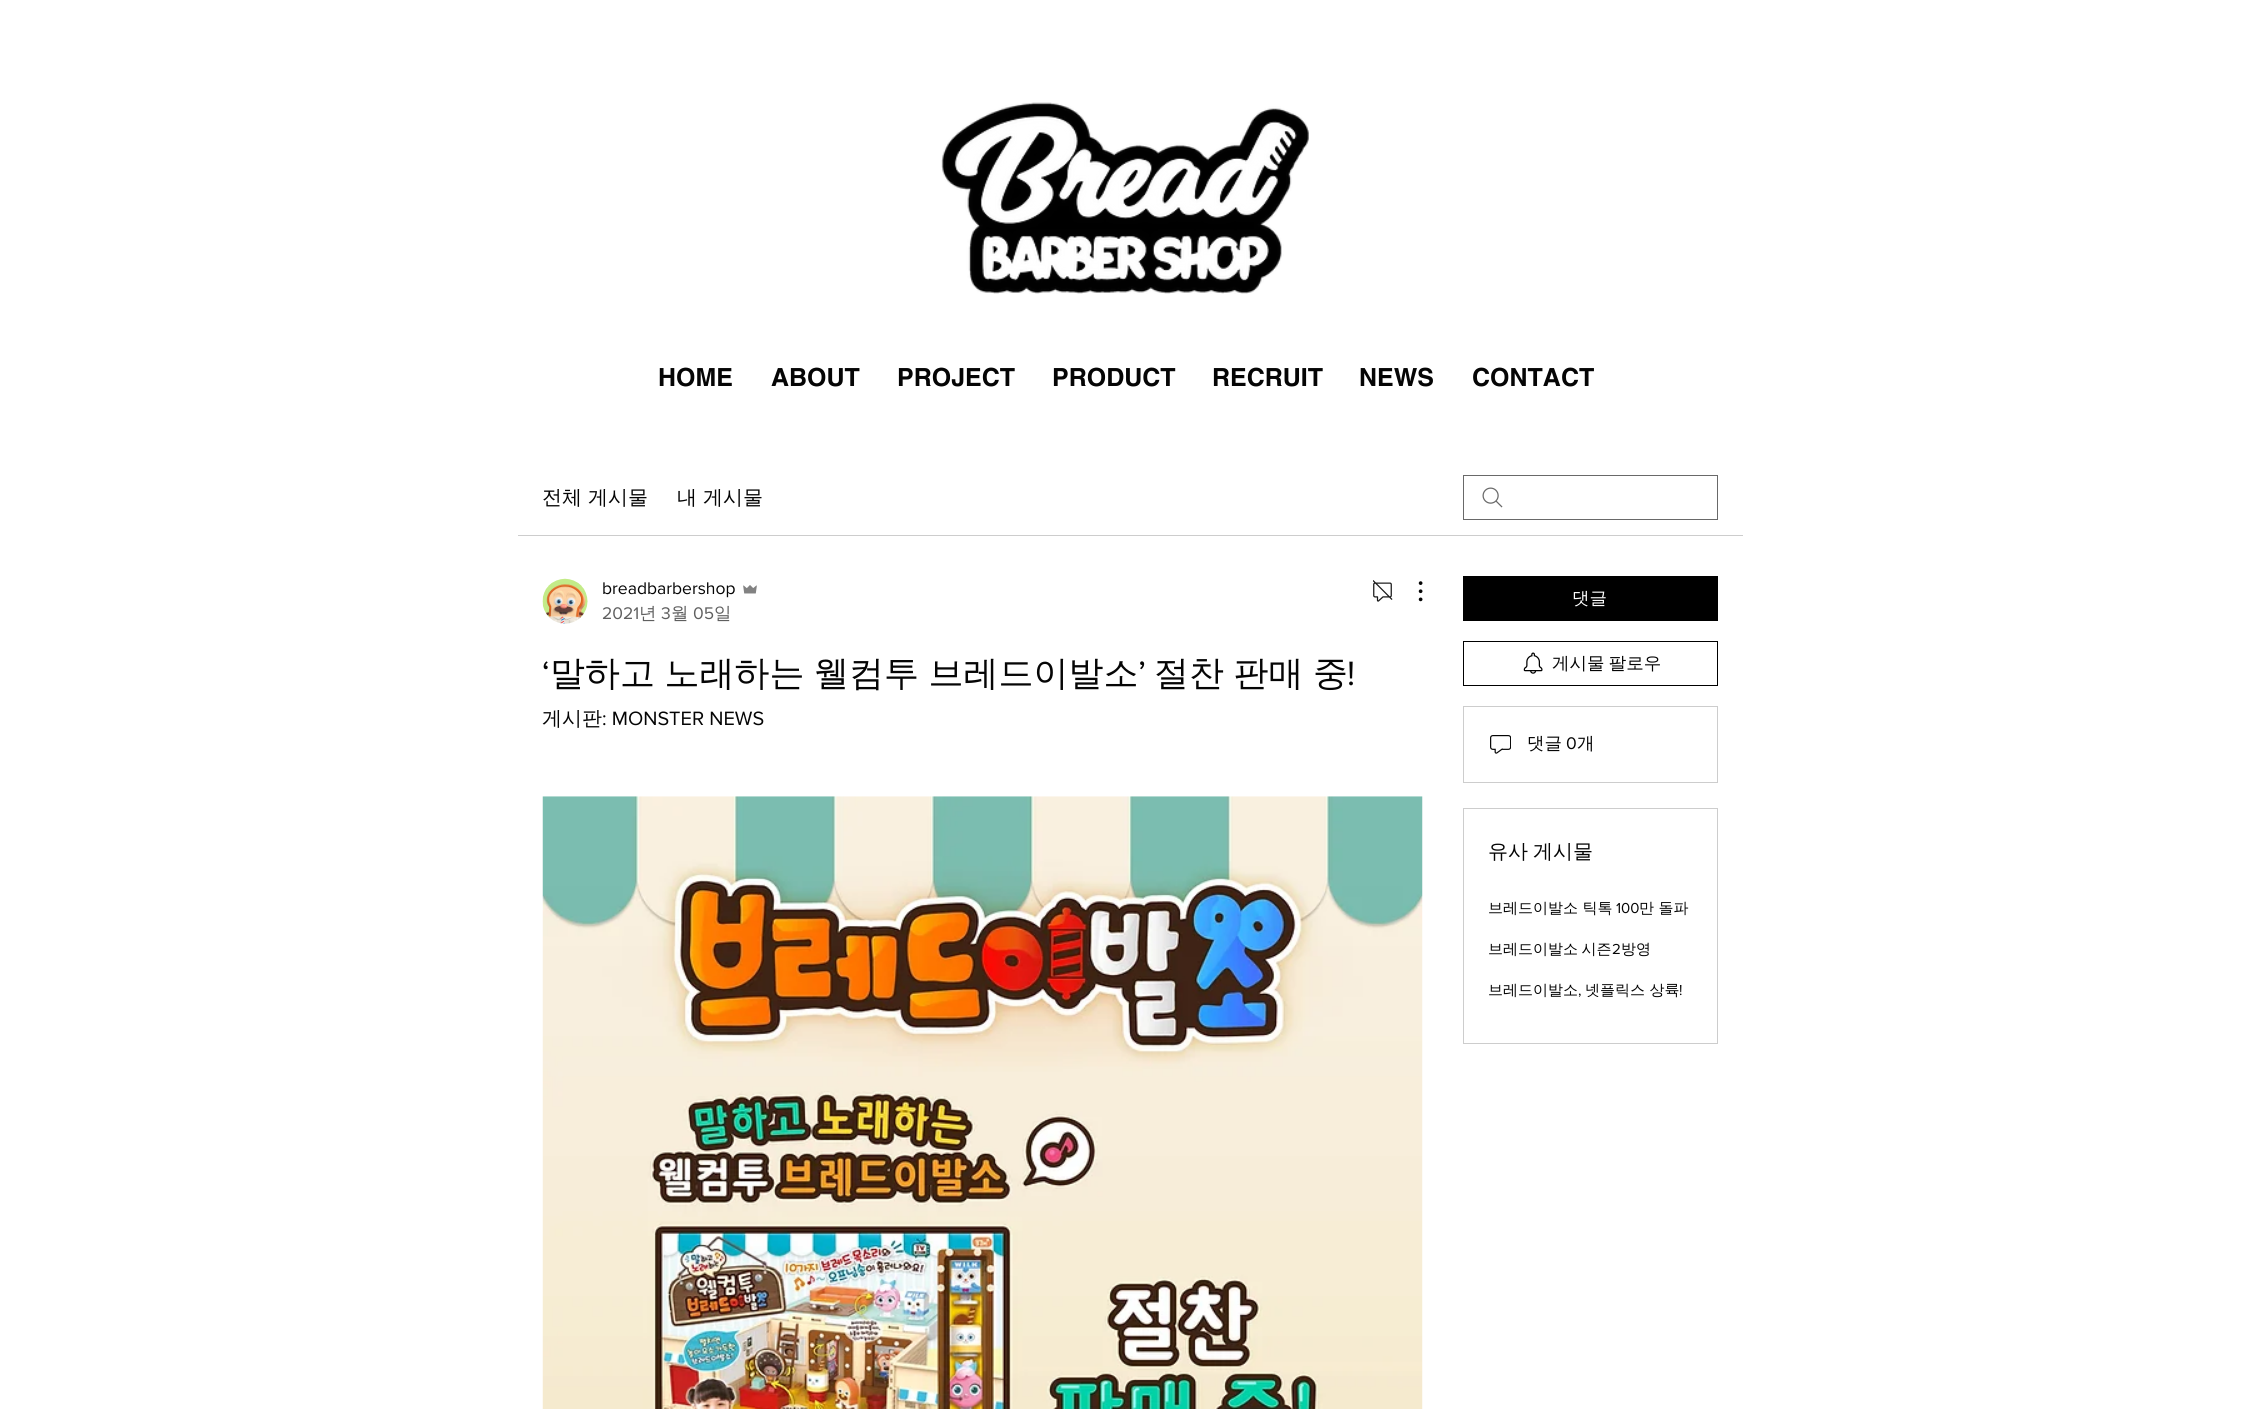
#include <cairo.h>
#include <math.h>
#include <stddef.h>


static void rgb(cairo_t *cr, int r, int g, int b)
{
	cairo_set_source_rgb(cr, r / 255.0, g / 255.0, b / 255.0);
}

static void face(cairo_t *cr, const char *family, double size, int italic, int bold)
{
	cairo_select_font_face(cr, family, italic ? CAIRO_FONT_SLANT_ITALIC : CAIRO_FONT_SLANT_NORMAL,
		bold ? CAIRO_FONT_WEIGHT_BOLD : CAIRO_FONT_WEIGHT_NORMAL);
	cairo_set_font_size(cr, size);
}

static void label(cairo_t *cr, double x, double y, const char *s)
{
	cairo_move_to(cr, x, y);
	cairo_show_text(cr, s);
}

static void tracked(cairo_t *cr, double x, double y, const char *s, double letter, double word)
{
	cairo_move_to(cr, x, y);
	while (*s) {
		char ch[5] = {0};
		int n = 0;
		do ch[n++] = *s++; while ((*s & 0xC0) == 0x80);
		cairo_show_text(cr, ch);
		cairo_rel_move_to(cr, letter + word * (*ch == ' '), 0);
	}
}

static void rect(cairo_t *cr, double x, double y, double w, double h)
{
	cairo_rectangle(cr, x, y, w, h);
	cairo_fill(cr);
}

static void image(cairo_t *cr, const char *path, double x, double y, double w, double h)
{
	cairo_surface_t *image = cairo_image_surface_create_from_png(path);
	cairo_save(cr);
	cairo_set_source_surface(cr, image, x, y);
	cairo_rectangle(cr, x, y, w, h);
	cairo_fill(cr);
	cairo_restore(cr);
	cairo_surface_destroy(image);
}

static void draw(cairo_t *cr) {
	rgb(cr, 255, 255, 255);
	cairo_paint(cr);
	image(cr, "image0.png", 941, 102, 368, 192);
	face(cr, "helvetica", 25, 0, 1);
	rgb(cr, 5, 5, 5);
	label(cr, 658, 386, "HOME");
	label(cr, 771, 386, "ABOUT");
	label(cr, 897, 386, "PROJECT");
	label(cr, 1052, 386, "PRODUCT");
	label(cr, 1212, 386, "RECRUIT");
	label(cr, 1359, 386, "NEWS");
	label(cr, 1472, 386, "CONTACT");
	rgb(cr, 205, 205, 205);
	rect(cr, 518, 535, 1225, 1);
	face(cr, "WenQuanYi Zen Hei Medium", 20, 0, 0);
	rgb(cr, 5, 5, 5);
	label(cr, 542, 504, "전체 게시물");
	label(cr, 677, 504, "내 게시물");
	image(cr, "image1.png", 1482, 487, 21, 21);
	cairo_rectangle(cr, 1463.5, 475.5, 254, 44);
	rgb(cr, 105, 105, 105);
	cairo_set_line_width(cr, 1);
	cairo_stroke(cr);
	image(cr, "image2.png", 542, 578, 46, 46);
	face(cr, "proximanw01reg", 17.5, 0, 0);
	rgb(cr, 5, 5, 5);
	label(cr, 602, 594, "breadbarbershop");
	image(cr, "image3.png", 743, 585, 14, 9);
	rgb(cr, 95, 95, 95);
	label(cr, 602, 619, "2021");
	face(cr, "WenQuanYi Zen Hei Medium", 17.5, 0, 0);
	label(cr, 639, 619, "년");
	face(cr, "proximanw01reg", 17.5, 0, 0);
	label(cr, 661, 619, "3");
	face(cr, "WenQuanYi Zen Hei Medium", 17.5, 0, 0);
	label(cr, 671, 619, "월");
	face(cr, "proximanw01reg", 17.5, 0, 0);
	label(cr, 693, 619, "05");
	face(cr, "WenQuanYi Zen Hei Medium", 17.5, 0, 0);
	label(cr, 714, 619, "일");
	image(cr, "image4.png", 1373, 580, 20, 22);
	image(cr, "image5.png", 1418, 581, 5, 21);
	face(cr, "proximanw01reg", 35, 0, 0);
	rgb(cr, 5, 5, 5);
	label(cr, 542, 685, "‘");
	face(cr, "WenQuanYi Zen Hei Medium", 35, 0, 0);
	tracked(cr, 550, 685, "말하고 노래하는 웰컴투 브레드이발소", 0, -1);
	face(cr, "proximanw01reg", 35, 0, 0);
	label(cr, 1138, 685, "’");
	face(cr, "WenQuanYi Zen Hei Medium", 35, 0, 0);
	tracked(cr, 1154, 685, "절찬 판매 중", 0, -1);
	face(cr, "proximanw01reg", 35, 0, 0);
	label(cr, 1347, 685, "!");
	face(cr, "WenQuanYi Zen Hei Medium", 20, 0, 0);
	label(cr, 542, 725, "게시판");
	face(cr, "proximanw01reg", 20, 0, 0);
	label(cr, 602, 725, ": MONSTER NEWS");
	image(cr, "image6.png", 542, 796, 881, 613);
	rgb(cr, 0, 0, 0);
	rect(cr, 1463, 576, 255, 45);
	face(cr, "WenQuanYi Zen Hei Medium", 17.5, 0, 0);
	rgb(cr, 255, 255, 255);
	label(cr, 1572, 604, "댓글");
	cairo_rectangle(cr, 1463.5, 641.5, 254, 44);
	rgb(cr, 0, 0, 0);
	cairo_stroke(cr);
	image(cr, "image7.png", 1523, 652, 20, 22);
	rgb(cr, 5, 5, 5);
	tracked(cr, 1552, 669, "게시물 팔로우", 0, -1);
	cairo_rectangle(cr, 1463.5, 706.5, 254, 76);
	rgb(cr, 205, 205, 205);
	cairo_stroke(cr);
	image(cr, "image8.png", 1490, 735, 21, 19);
	rgb(cr, 5, 5, 5);
	label(cr, 1527, 749, "댓글");
	face(cr, "proximanw01reg", 17.5, 0, 0);
	label(cr, 1566, 749, "0");
	face(cr, "WenQuanYi Zen Hei Medium", 17.5, 0, 0);
	label(cr, 1577, 749, "개");
	cairo_rectangle(cr, 1463.5, 808.5, 254, 235);
	rgb(cr, 205, 205, 205);
	cairo_stroke(cr);
	face(cr, "WenQuanYi Zen Hei Medium", 20, 0, 0);
	rgb(cr, 5, 5, 5);
	tracked(cr, 1488, 858, "유사 게시물", 0, -1);
	face(cr, "WenQuanYi Zen Hei Medium", 15, 0, 0);
	label(cr, 1488, 913, "브레드이발소 틱톡");
	face(cr, "proximanw01reg", 15, 0, 0);
	label(cr, 1616, 913, "100");
	face(cr, "WenQuanYi Zen Hei Medium", 15, 0, 0);
	label(cr, 1639, 913, "만 돌파");
	tracked(cr, 1488, 954, "브레드이발소 시즌", 0, -1);
	face(cr, "proximanw01reg", 15, 0, 0);
	label(cr, 1612, 954, "2");
	face(cr, "WenQuanYi Zen Hei Medium", 15, 0, 0);
	label(cr, 1621, 954, "방영");
	label(cr, 1488, 995, "브레드이발소");
	face(cr, "proximanw01reg", 15, 0, 0);
	label(cr, 1578, 995, ",");
	face(cr, "WenQuanYi Zen Hei Medium", 15, 0, 0);
	label(cr, 1585, 995, "넷플릭스 상륙");
	face(cr, "proximanw01reg", 15, 0, 0);
	label(cr, 1679, 995, "!");
}

int main(void) {
	cairo_surface_t *surface = cairo_image_surface_create(CAIRO_FORMAT_RGB24, 2263, 1409);
	cairo_t *cr = cairo_create(surface);
	cairo_font_options_t *options = cairo_font_options_create();
	cairo_font_options_set_hint_metrics(options, CAIRO_HINT_METRICS_OFF);
	cairo_font_options_set_hint_style(options, CAIRO_HINT_STYLE_NONE);
	cairo_set_font_options(cr, options);
	cairo_set_miter_limit(cr, 4);
	draw(cr);
	cairo_surface_write_to_png(surface, "render.png");
	cairo_font_options_destroy(options);
	cairo_destroy(cr);
	cairo_surface_destroy(surface);
	return 0;
}
